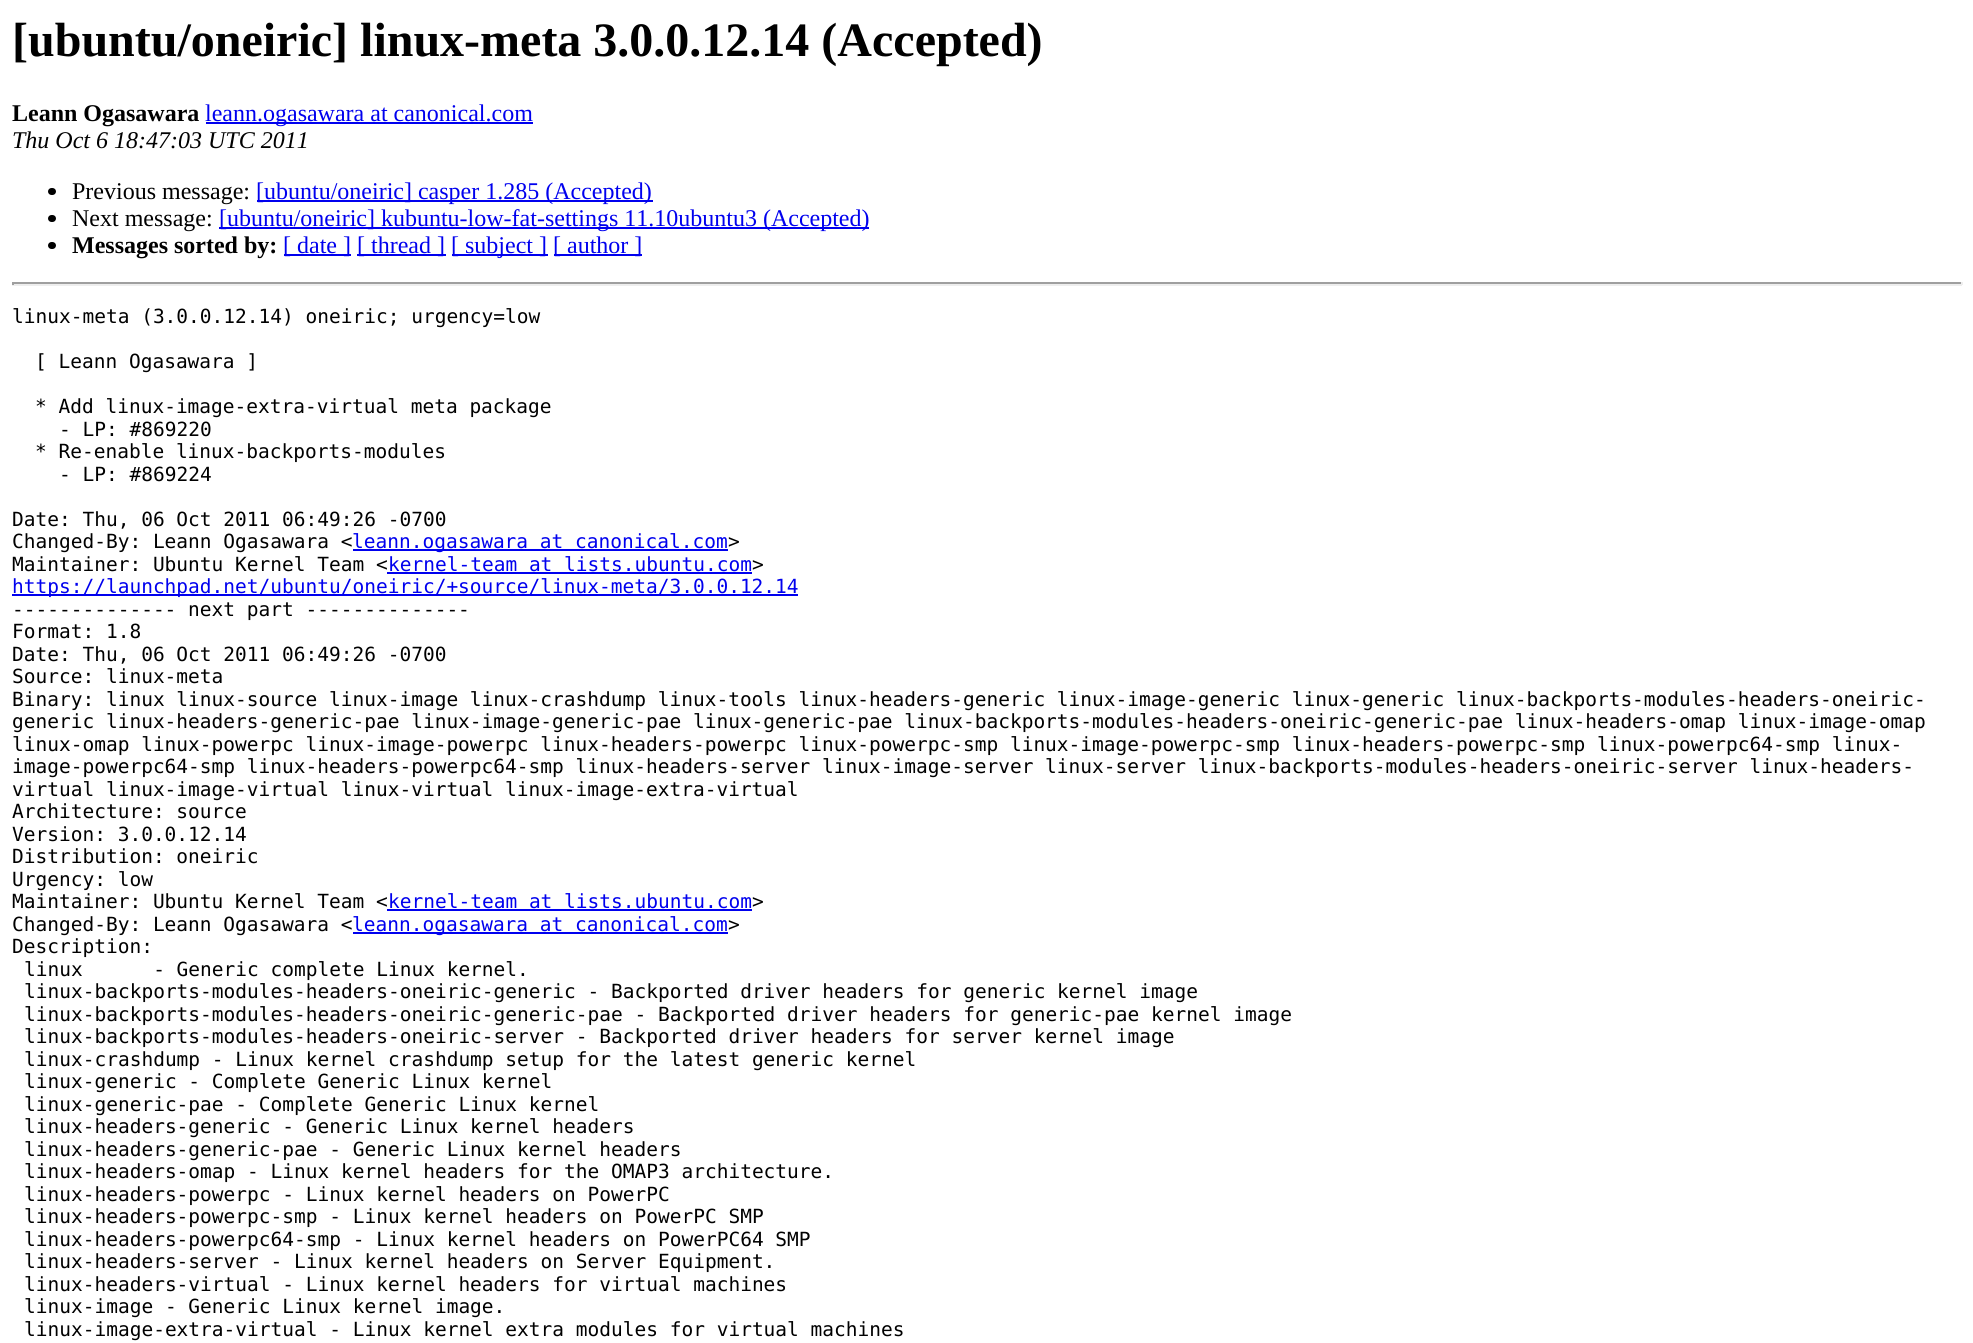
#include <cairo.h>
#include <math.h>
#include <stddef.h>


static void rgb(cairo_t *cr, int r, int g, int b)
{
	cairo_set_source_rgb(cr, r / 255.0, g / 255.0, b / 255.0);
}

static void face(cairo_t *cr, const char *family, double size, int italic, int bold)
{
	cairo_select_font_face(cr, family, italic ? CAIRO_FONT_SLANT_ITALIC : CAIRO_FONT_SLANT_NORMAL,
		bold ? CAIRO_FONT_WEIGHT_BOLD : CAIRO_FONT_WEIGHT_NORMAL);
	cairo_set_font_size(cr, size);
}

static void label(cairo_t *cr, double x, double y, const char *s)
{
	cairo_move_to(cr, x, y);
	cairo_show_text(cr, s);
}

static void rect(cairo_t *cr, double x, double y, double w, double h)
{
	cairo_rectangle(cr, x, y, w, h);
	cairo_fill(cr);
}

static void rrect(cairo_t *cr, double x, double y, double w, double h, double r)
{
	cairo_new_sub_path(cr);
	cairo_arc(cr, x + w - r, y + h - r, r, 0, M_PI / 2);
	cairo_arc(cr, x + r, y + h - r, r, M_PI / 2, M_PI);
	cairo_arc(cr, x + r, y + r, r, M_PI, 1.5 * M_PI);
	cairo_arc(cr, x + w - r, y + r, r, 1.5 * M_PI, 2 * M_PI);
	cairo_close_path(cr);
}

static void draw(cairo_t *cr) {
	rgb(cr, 255, 255, 255);
	cairo_paint(cr);
	face(cr, "Liberation Serif", 48, 0, 1);
	rgb(cr, 0, 0, 0);
	label(cr, 12, 56, "[ubuntu/oneiric] linux-meta 3.0.0.12.14 (Accepted)");
	face(cr, "Liberation Serif", 24, 0, 1);
	label(cr, 12, 121, "Leann Ogasawara");
	rgb(cr, 0, 0, 238);
	rect(cr, 206, 122, 327, 2);
	face(cr, "Liberation Serif", 24, 0, 0);
	label(cr, 205, 121, "leann.ogasawara at canonical.com");
	face(cr, "Liberation Serif", 24, 1, 0);
	rgb(cr, 0, 0, 0);
	label(cr, 12, 148, "Thu Oct 6 18:47:03 UTC 2011");
	rrect(cr, 48, 188, 8, 7, 3.5);
	cairo_fill(cr);
	face(cr, "Liberation Serif", 24, 0, 0);
	label(cr, 72, 199, "Previous message:");
	rgb(cr, 0, 0, 238);
	rect(cr, 257, 200, 396, 2);
	label(cr, 256, 199, "[ubuntu/oneiric] casper 1.285 (Accepted)");
	rgb(cr, 0, 0, 0);
	rrect(cr, 48, 215, 8, 7, 3.5);
	cairo_fill(cr);
	label(cr, 72, 226, "Next message:");
	rgb(cr, 0, 0, 238);
	rect(cr, 219, 227, 650, 2);
	label(cr, 219, 226, "[ubuntu/oneiric] kubuntu-low-fat-settings 11.10ubuntu3 (Accepted)");
	rgb(cr, 0, 0, 0);
	rrect(cr, 48, 242, 8, 7, 3.5);
	cairo_fill(cr);
	face(cr, "Liberation Serif", 24, 0, 1);
	label(cr, 72, 253, "Messages sorted by:");
	rgb(cr, 0, 0, 238);
	rect(cr, 284, 254, 67, 2);
	face(cr, "Liberation Serif", 24, 0, 0);
	label(cr, 283, 253, "[ date ]");
	rect(cr, 357, 254, 89, 2);
	label(cr, 357, 253, "[ thread ]");
	rect(cr, 452, 254, 96, 2);
	label(cr, 451, 253, "[ subject ]");
	rect(cr, 554, 254, 88, 2);
	label(cr, 553, 253, "[ author ]");
	rgb(cr, 159, 159, 159);
	rect(cr, 12, 282, 1950, 2);
	rgb(cr, 238, 238, 238);
	rect(cr, 1961, 282, 2, 3);
	rect(cr, 12, 284, 1950, 2);
	rgb(cr, 159, 159, 159);
	rect(cr, 12, 282, 2, 3);
	face(cr, "DejaVu Sans Mono", 19.5, 0, 0);
	rgb(cr, 0, 0, 0);
	label(cr, 12, 323, "linux-meta (3.0.0.12.14) oneiric; urgency=low");
	label(cr, 35, 368, "[ Leann Ogasawara ]");
	label(cr, 35, 413, "* Add linux-image-extra-virtual meta package");
	label(cr, 59, 436, "- LP: #869220");
	label(cr, 35, 458, "* Re-enable linux-backports-modules");
	label(cr, 59, 481, "- LP: #869224");
	label(cr, 12, 526, "Date: Thu, 06 Oct 2011 06:49:26 -0700");
	label(cr, 12, 548, "Changed-By: Leann Ogasawara <");
	rgb(cr, 0, 0, 238);
	rect(cr, 353, 549, 375, 2);
	label(cr, 352, 548, "leann.ogasawara at canonical.com");
	rgb(cr, 0, 0, 0);
	label(cr, 728, 548, ">");
	label(cr, 12, 571, "Maintainer: Ubuntu Kernel Team <");
	rgb(cr, 0, 0, 238);
	label(cr, 388, 571, "kernel-team at lists.ubuntu.com");
	rect(cr, 387, 572, 365, 2);
	rgb(cr, 0, 0, 0);
	label(cr, 752, 571, ">");
	rgb(cr, 0, 0, 238);
	rect(cr, 12, 594, 786, 2);
	label(cr, 12, 593, "https://launchpad.net/ubuntu/oneiric/+source/linux-meta/3.0.0.12.14");
	rgb(cr, 0, 0, 0);
	label(cr, 12, 616, "-------------- next part --------------");
	label(cr, 12, 638, "Format: 1.8");
	label(cr, 12, 661, "Date: Thu, 06 Oct 2011 06:49:26 -0700");
	label(cr, 12, 683, "Source: linux-meta");
	label(cr, 12, 706, "Binary: linux linux-source linux-image linux-crashdump linux-tools linux-headers-generic linux-image-generic linux-generic linux-backports-modules-headers-oneiric-");
	label(cr, 12, 728, "generic linux-headers-generic-pae linux-image-generic-pae linux-generic-pae linux-backports-modules-headers-oneiric-generic-pae linux-headers-omap linux-image-omap");
	label(cr, 12, 751, "linux-omap linux-powerpc linux-image-powerpc linux-headers-powerpc linux-powerpc-smp linux-image-powerpc-smp linux-headers-powerpc-smp linux-powerpc64-smp linux-");
	label(cr, 12, 773, "image-powerpc64-smp linux-headers-powerpc64-smp linux-headers-server linux-image-server linux-server linux-backports-modules-headers-oneiric-server linux-headers-");
	label(cr, 12, 796, "virtual linux-image-virtual linux-virtual linux-image-extra-virtual");
	label(cr, 12, 818, "Architecture: source");
	label(cr, 12, 841, "Version: 3.0.0.12.14");
	label(cr, 12, 863, "Distribution: oneiric");
	label(cr, 12, 886, "Urgency: low");
	label(cr, 12, 908, "Maintainer: Ubuntu Kernel Team <");
	rgb(cr, 0, 0, 238);
	label(cr, 388, 908, "kernel-team at lists.ubuntu.com");
	rect(cr, 387, 909, 365, 2);
	rgb(cr, 0, 0, 0);
	label(cr, 752, 908, ">");
	label(cr, 12, 931, "Changed-By: Leann Ogasawara <");
	rgb(cr, 0, 0, 238);
	rect(cr, 353, 932, 375, 2);
	label(cr, 352, 931, "leann.ogasawara at canonical.com");
	rgb(cr, 0, 0, 0);
	label(cr, 728, 931, ">");
	label(cr, 12, 953, "Description:");
	label(cr, 24, 976, "linux      - Generic complete Linux kernel.");
	label(cr, 24, 998, "linux-backports-modules-headers-oneiric-generic - Backported driver headers for generic kernel image");
	label(cr, 24, 1021, "linux-backports-modules-headers-oneiric-generic-pae - Backported driver headers for generic-pae kernel image");
	label(cr, 24, 1043, "linux-backports-modules-headers-oneiric-server - Backported driver headers for server kernel image");
	label(cr, 24, 1066, "linux-crashdump - Linux kernel crashdump setup for the latest generic kernel");
	label(cr, 24, 1088, "linux-generic - Complete Generic Linux kernel");
	label(cr, 24, 1111, "linux-generic-pae - Complete Generic Linux kernel");
	label(cr, 24, 1133, "linux-headers-generic - Generic Linux kernel headers");
	label(cr, 24, 1156, "linux-headers-generic-pae - Generic Linux kernel headers");
	label(cr, 24, 1178, "linux-headers-omap - Linux kernel headers for the OMAP3 architecture.");
	label(cr, 24, 1201, "linux-headers-powerpc - Linux kernel headers on PowerPC");
	label(cr, 24, 1223, "linux-headers-powerpc-smp - Linux kernel headers on PowerPC SMP");
	label(cr, 24, 1246, "linux-headers-powerpc64-smp - Linux kernel headers on PowerPC64 SMP");
	label(cr, 24, 1268, "linux-headers-server - Linux kernel headers on Server Equipment.");
	label(cr, 24, 1291, "linux-headers-virtual - Linux kernel headers for virtual machines");
	label(cr, 24, 1313, "linux-image - Generic Linux kernel image.");
	label(cr, 24, 1336, "linux-image-extra-virtual - Linux kernel extra modules for virtual machines");
}

int main(void) {
	cairo_surface_t *surface = cairo_image_surface_create(CAIRO_FORMAT_RGB24, 1973, 1343);
	cairo_t *cr = cairo_create(surface);
	cairo_font_options_t *options = cairo_font_options_create();
	cairo_font_options_set_hint_metrics(options, CAIRO_HINT_METRICS_OFF);
	cairo_font_options_set_hint_style(options, CAIRO_HINT_STYLE_NONE);
	cairo_set_font_options(cr, options);
	cairo_set_miter_limit(cr, 4);
	draw(cr);
	cairo_surface_write_to_png(surface, "render.png");
	cairo_font_options_destroy(options);
	cairo_destroy(cr);
	cairo_surface_destroy(surface);
	return 0;
}
